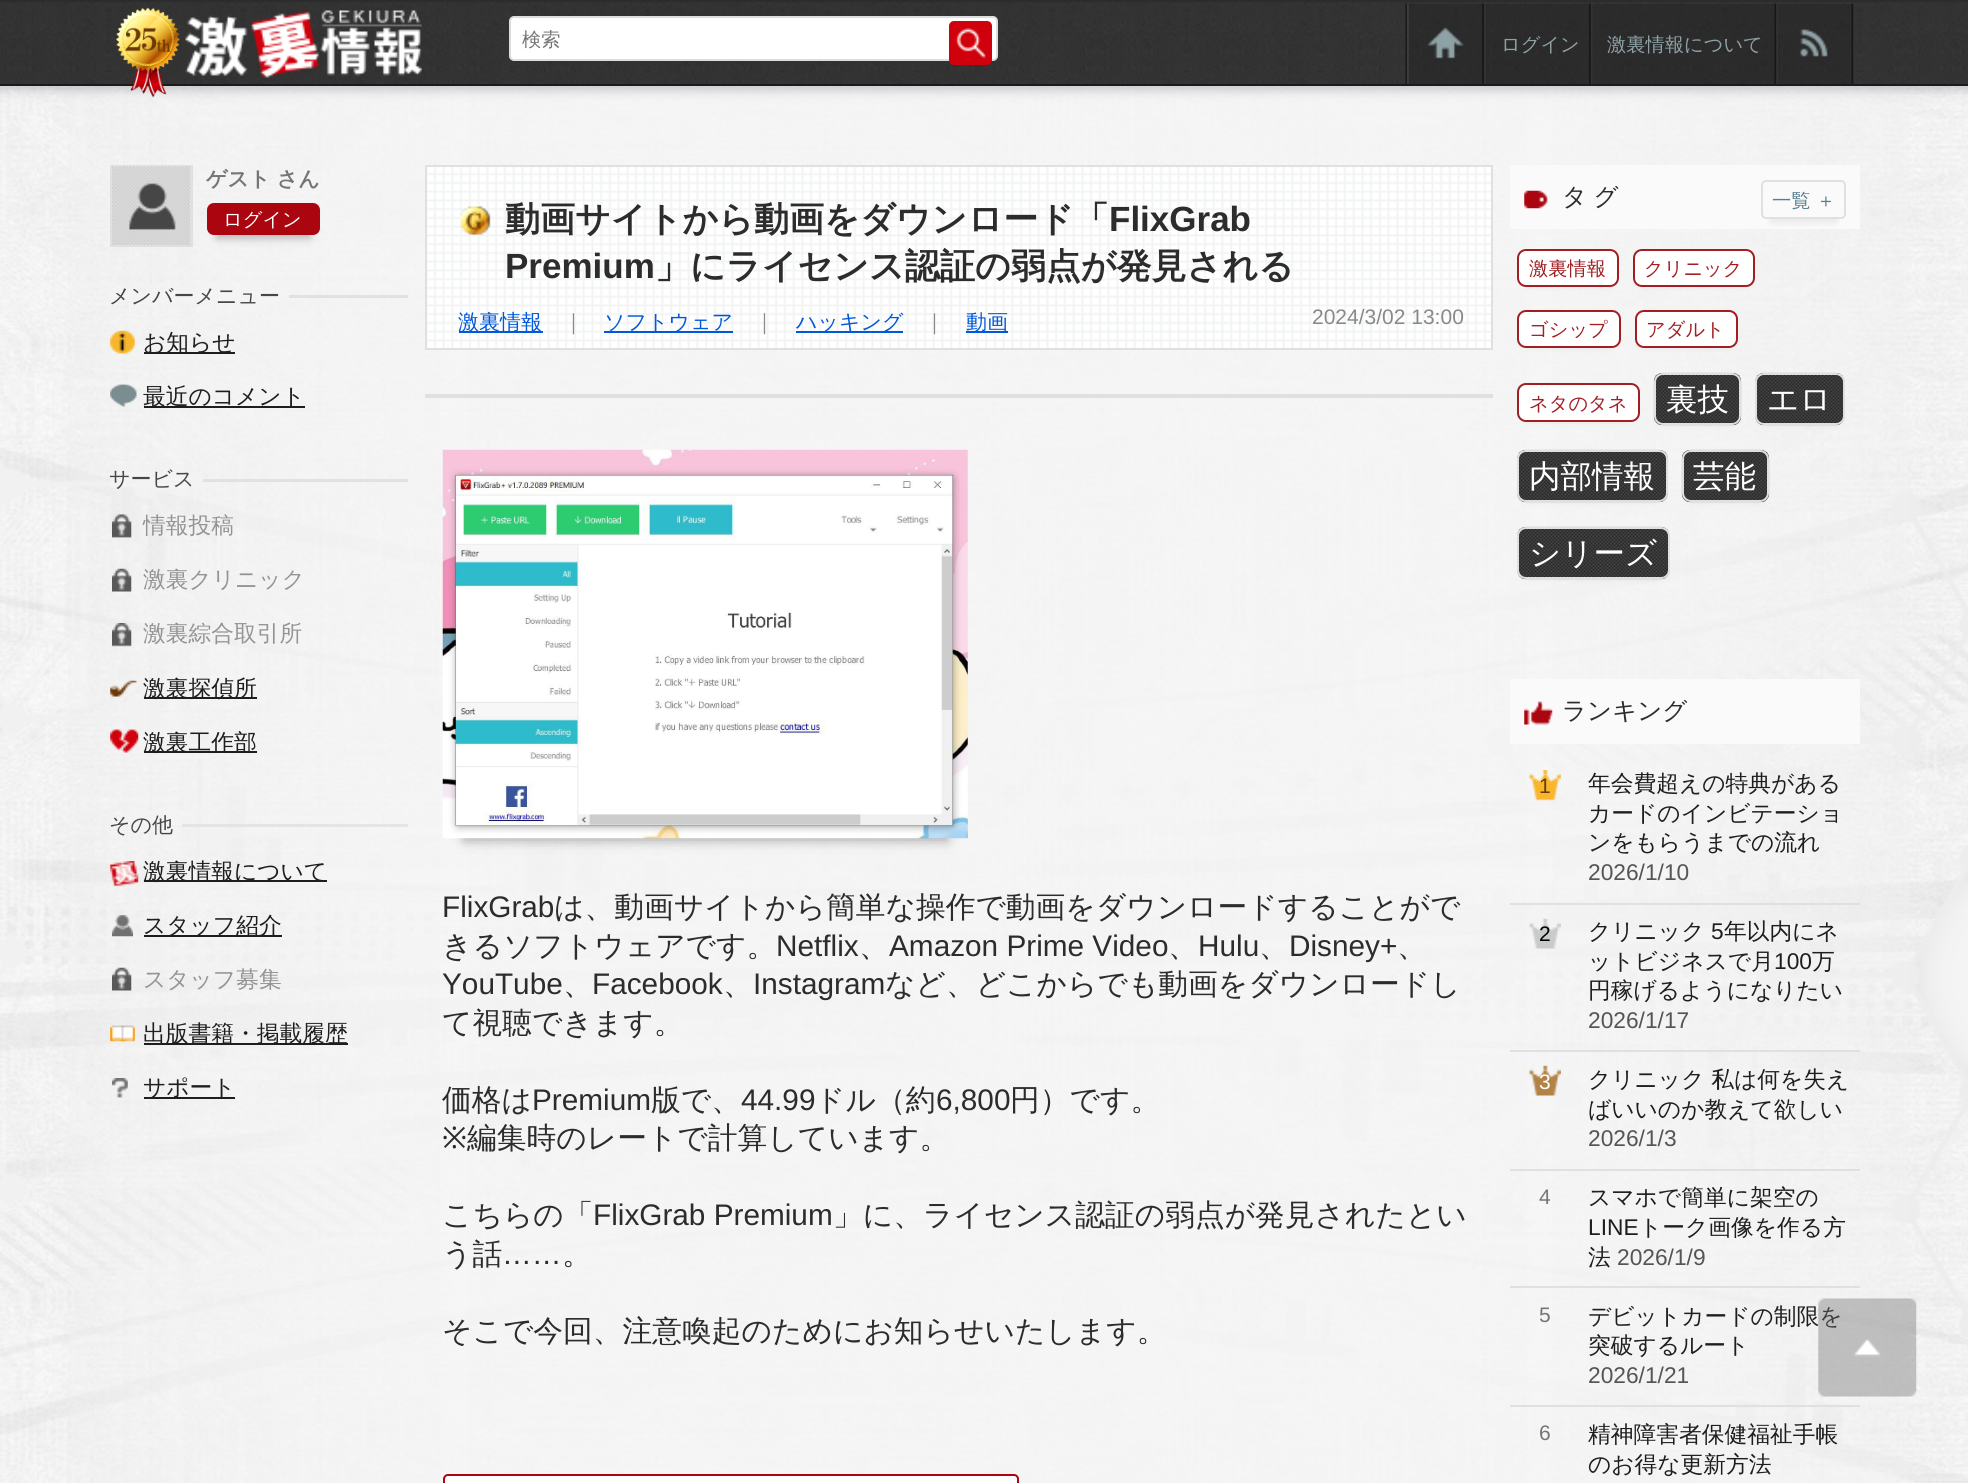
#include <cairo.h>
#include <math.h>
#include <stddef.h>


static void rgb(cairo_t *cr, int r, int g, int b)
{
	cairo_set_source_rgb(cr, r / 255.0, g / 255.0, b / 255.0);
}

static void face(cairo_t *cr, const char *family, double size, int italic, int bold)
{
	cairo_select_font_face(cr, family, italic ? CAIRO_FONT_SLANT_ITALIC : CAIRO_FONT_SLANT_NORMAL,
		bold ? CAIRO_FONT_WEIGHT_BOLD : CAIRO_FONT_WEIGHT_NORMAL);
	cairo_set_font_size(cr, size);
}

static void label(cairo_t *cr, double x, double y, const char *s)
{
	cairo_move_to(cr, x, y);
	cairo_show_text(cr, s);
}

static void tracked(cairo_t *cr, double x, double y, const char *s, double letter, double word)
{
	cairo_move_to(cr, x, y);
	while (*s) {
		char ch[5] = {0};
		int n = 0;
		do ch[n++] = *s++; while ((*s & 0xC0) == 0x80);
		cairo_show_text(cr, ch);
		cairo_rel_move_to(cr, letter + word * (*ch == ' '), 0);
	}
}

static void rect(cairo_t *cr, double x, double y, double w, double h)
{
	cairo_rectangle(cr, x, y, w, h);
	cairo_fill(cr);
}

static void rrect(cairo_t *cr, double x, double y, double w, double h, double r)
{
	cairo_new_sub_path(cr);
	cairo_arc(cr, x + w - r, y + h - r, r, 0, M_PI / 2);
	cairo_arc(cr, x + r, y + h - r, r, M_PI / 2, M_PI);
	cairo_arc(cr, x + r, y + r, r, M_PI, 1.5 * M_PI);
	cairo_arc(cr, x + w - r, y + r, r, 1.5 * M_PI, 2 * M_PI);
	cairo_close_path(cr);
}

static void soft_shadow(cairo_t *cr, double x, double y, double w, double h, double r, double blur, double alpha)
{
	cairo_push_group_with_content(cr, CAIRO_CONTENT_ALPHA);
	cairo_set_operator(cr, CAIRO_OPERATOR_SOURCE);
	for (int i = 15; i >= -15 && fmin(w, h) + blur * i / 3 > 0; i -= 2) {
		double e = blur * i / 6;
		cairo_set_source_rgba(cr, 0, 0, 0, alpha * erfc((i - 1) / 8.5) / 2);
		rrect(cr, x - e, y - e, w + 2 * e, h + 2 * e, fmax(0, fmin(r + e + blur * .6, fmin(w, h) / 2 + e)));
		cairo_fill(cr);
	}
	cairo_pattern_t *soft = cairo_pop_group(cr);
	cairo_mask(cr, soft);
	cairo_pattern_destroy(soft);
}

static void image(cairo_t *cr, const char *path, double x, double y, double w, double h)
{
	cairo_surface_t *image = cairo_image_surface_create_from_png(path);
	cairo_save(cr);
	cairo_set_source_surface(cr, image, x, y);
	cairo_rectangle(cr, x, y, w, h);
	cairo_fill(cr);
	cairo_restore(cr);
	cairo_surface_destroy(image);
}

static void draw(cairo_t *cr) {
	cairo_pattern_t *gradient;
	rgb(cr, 255, 255, 255);
	cairo_paint(cr);
	image(cr, "image40.png", 0, 86, 1968, 1397);
	image(cr, "image41.png", 0, 448, 1968, 1035);
	image(cr, "image0.png", 0, 460, 1968, 878);
	image(cr, "image1.png", 68, 86, 1841, 1397);
	rgb(cr, 35, 31, 51);
	soft_shadow(cr, -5, -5, 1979, 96, 0, 5, 0.2);
	image(cr, "image2.png", 0, 2, 1968, 82);
	rgb(cr, 44, 44, 44);
	rect(cr, 0, 0, 1968, 2);
	rgb(cr, 27, 27, 27);
	rect(cr, 0, 84, 1968, 2);
	image(cr, "image3.png", 116, 7, 64, 91);
	image(cr, "image4.png", 185, 10, 237, 68);
	rgb(cr, 255, 255, 255);
	rrect(cr, 510, 17, 487, 43, 4);
	cairo_fill_preserve(cr);
	rgb(cr, 220, 221, 221);
	cairo_stroke(cr);
	face(cr, "WenQuanYi Zen Hei Medium", 19.25, 0, 0);
	rgb(cr, 117, 117, 117);
	label(cr, 522, 46, "検索");
	rgb(cr, 208, 0, 13);
	rrect(cr, 949, 21, 43, 44, 5);
	cairo_fill(cr);
	image(cr, "image5.png", 955, 28, 31, 30);
	image(cr, "image6.png", 1405, 3, 4, 81);
	image(cr, "image7.png", 1482, 3, 4, 81);
	cairo_set_source_rgba(cr, 0, 0, 0, 0.15);
	rect(cr, 1409, 4, 77, 80);
	image(cr, "image8.png", 1427, 27, 37, 32);
	image(cr, "image9.png", 1589, 3, 4, 81);
	rect(cr, 1486, 4, 107, 80);
	rgb(cr, 142, 161, 165);
	label(cr, 1501, 51, "ログイン");
	image(cr, "image10.png", 1774, 3, 4, 81);
	cairo_set_source_rgba(cr, 0, 0, 0, 0.15);
	rect(cr, 1593, 4, 185, 80);
	rgb(cr, 142, 161, 165);
	label(cr, 1607, 51, "激裏情報について");
	image(cr, "image11.png", 1851, 3, 4, 81);
	cairo_set_source_rgba(cr, 0, 0, 0, 0.15);
	rect(cr, 1778, 4, 77, 80);
	image(cr, "image12.png", 1800, 29, 28, 28);
	cairo_rectangle(cr, 111, 166, 81, 80);
	rgb(cr, 224, 224, 224);
	cairo_stroke(cr);
	image(cr, "image13.png", 112, 166, 79, 79);
	face(cr, "WenQuanYi Zen Hei", 21, 0, 1);
	rgb(cr, 117, 117, 117);
	label(cr, 206, 186, "ゲスト さん");
	rgb(cr, 115, 114, 115);
	soft_shadow(cr, 217, 228, 93, 10, 0, 4.5, 0.5);
	rgb(cr, 171, 6, 16);
	rrect(cr, 207, 203, 113, 32, 7);
	cairo_fill(cr);
	face(cr, "WenQuanYi Zen Hei Medium", 19.25, 0, 0);
	rgb(cr, 255, 255, 255);
	label(cr, 223, 226, "ログイン");
	cairo_set_source_rgba(cr, 0.878, 0.878, 0.878, 0.93);
	rect(cr, 110, 295, 298, 3);
	gradient = cairo_pattern_create_linear(110, 284, 110, 308);
	cairo_pattern_add_color_stop_rgba(gradient, 0, 0.957, 0.957, 0.957, 0);
	cairo_pattern_add_color_stop_rgba(gradient, 0.49, 0.957, 0.957, 0.957, 1);
	cairo_pattern_add_color_stop_rgba(gradient, 0.51, 0.957, 0.957, 0.957, 1);
	cairo_pattern_add_color_stop_rgba(gradient, 1, 0.957, 0.957, 0.957, 0);
	cairo_set_source(cr, gradient);
	cairo_pattern_destroy(gradient);
	rect(cr, 110, 291, 179, 11);
	face(cr, "WenQuanYi Zen Hei Medium", 21, 0, 0);
	rgb(cr, 70, 70, 70);
	label(cr, 109, 303, "メンバーメニュー");
	image(cr, "image14.png", 110, 330, 25, 24);
	rgb(cr, 30, 30, 30);
	rect(cr, 144, 352, 91, 2);
	face(cr, "WenQuanYi Zen Hei Medium", 22.75, 0, 0);
	label(cr, 143, 350, "お知らせ");
	image(cr, "image15.png", 110, 384, 27, 23);
	rect(cr, 144, 406, 161, 2);
	label(cr, 143, 404, "最近のコメント");
	cairo_set_source_rgba(cr, 0.878, 0.878, 0.878, 0.93);
	rect(cr, 110, 479, 298, 3);
	gradient = cairo_pattern_create_linear(110, 467, 110, 492);
	cairo_pattern_add_color_stop_rgba(gradient, 0, 0.957, 0.957, 0.957, 0);
	cairo_pattern_add_color_stop_rgba(gradient, 0.49, 0.957, 0.957, 0.957, 1);
	cairo_pattern_add_color_stop_rgba(gradient, 0.51, 0.957, 0.957, 0.957, 1);
	cairo_pattern_add_color_stop_rgba(gradient, 1, 0.957, 0.957, 0.957, 0);
	cairo_set_source(cr, gradient);
	cairo_pattern_destroy(gradient);
	rect(cr, 110, 472, 93, 15);
	face(cr, "WenQuanYi Zen Hei Medium", 21, 0, 0);
	rgb(cr, 70, 70, 70);
	label(cr, 109, 486, "サービス");
	image(cr, "image16.png", 112, 514, 20, 24);
	face(cr, "WenQuanYi Zen Hei Medium", 22.75, 0, 0);
	rgb(cr, 148, 148, 148);
	label(cr, 143, 533, "情報投稿");
	image(cr, "image17.png", 112, 568, 20, 24);
	label(cr, 143, 587, "激裏クリニック");
	image(cr, "image18.png", 112, 623, 20, 24);
	label(cr, 143, 641, "激裏綜合取引所");
	image(cr, "image19.png", 110, 680, 27, 17);
	rgb(cr, 30, 30, 30);
	rect(cr, 144, 697, 113, 2);
	label(cr, 143, 696, "激裏探偵所");
	image(cr, "image20.png", 110, 729, 29, 24);
	rect(cr, 144, 751, 113, 2);
	label(cr, 143, 750, "激裏工作部");
	cairo_set_source_rgba(cr, 0.878, 0.878, 0.878, 0.78);
	rect(cr, 110, 824, 298, 3);
	gradient = cairo_pattern_create_linear(110, 812, 110, 837);
	cairo_pattern_add_color_stop_rgba(gradient, 0, 0.957, 0.957, 0.957, 0);
	cairo_pattern_add_color_stop_rgba(gradient, 0.49, 0.957, 0.957, 0.957, 1);
	cairo_pattern_add_color_stop_rgba(gradient, 0.51, 0.957, 0.957, 0.957, 1);
	cairo_pattern_add_color_stop_rgba(gradient, 1, 0.957, 0.957, 0.957, 0);
	cairo_set_source(cr, gradient);
	cairo_pattern_destroy(gradient);
	rect(cr, 110, 817, 72, 15);
	face(cr, "WenQuanYi Zen Hei Medium", 21, 0, 0);
	rgb(cr, 70, 70, 70);
	label(cr, 109, 832, "その他");
	image(cr, "image21.png", 110, 861, 29, 26);
	rgb(cr, 30, 30, 30);
	rect(cr, 144, 880, 183, 2);
	face(cr, "WenQuanYi Zen Hei Medium", 22.75, 0, 0);
	label(cr, 143, 879, "激裏情報について");
	image(cr, "image22.png", 112, 915, 21, 22);
	rect(cr, 144, 935, 138, 2);
	label(cr, 143, 933, "スタッフ紹介");
	image(cr, "image23.png", 112, 967, 20, 24);
	rgb(cr, 148, 148, 148);
	label(cr, 143, 987, "スタッフ募集");
	image(cr, "image24.png", 110, 1025, 25, 17);
	rgb(cr, 30, 30, 30);
	rect(cr, 144, 1043, 204, 2);
	label(cr, 143, 1041, "出版書籍・掲載履歴");
	image(cr, "image25.png", 112, 1078, 16, 20);
	rect(cr, 144, 1097, 91, 2);
	label(cr, 143, 1095, "サポート");
	image(cr, "image26.png", 427, 167, 1064, 181);
	cairo_rectangle(cr, 426, 166, 1066, 183);
	rgb(cr, 224, 224, 224);
	cairo_stroke(cr);
	image(cr, "image27.png", 460, 206, 31, 29);
	face(cr, "WenQuanYi Zen Hei", 35, 0, 1);
	rgb(cr, 44, 44, 44);
	label(cr, 505, 231, "動画サイトから動画をダウンロード「");
	face(cr, "Liberation Sans", 35, 0, 1);
	label(cr, 1109, 231, "FlixGrab");
	label(cr, 505, 278, "Premium");
	face(cr, "WenQuanYi Zen Hei", 35, 0, 1);
	label(cr, 655, 278, "」にライセンス認証の弱点が発見される");
	rgb(cr, 0, 88, 220);
	rect(cr, 459, 331, 84, 2);
	face(cr, "WenQuanYi Zen Hei Medium", 21, 0, 0);
	label(cr, 458, 329, "激裏情報");
	rgb(cr, 137, 137, 137);
	label(cr, 563, 329, "｜");
	rgb(cr, 0, 88, 220);
	rect(cr, 604, 331, 129, 2);
	label(cr, 604, 329, "ソフトウェア");
	rgb(cr, 137, 137, 137);
	label(cr, 754, 329, "｜");
	rgb(cr, 0, 88, 220);
	rect(cr, 796, 331, 107, 2);
	label(cr, 796, 329, "ハッキング");
	rgb(cr, 137, 137, 137);
	label(cr, 924, 329, "｜");
	rgb(cr, 0, 88, 220);
	rect(cr, 966, 331, 42, 2);
	label(cr, 966, 329, "動画");
	face(cr, "Liberation Sans", 21, 0, 0);
	rgb(cr, 137, 137, 137);
	label(cr, 1312, 324, "2024/3/02 13:00");
	rgb(cr, 224, 224, 224);
	rect(cr, 425, 394, 1068, 4);
	rgb(cr, 51, 51, 51);
	soft_shadow(cr, 464, 494, 483, 346, 0, 6, 0.43);
	image(cr, "image28.png", 442, 449, 526, 390);
	face(cr, "Liberation Sans", 29.75, 0, 0);
	rgb(cr, 44, 44, 44);
	label(cr, 442, 917, "FlixGrab");
	face(cr, "WenQuanYi Zen Hei Medium", 29.75, 0, 0);
	label(cr, 554, 917, "は、動画サイトから簡単な操作で動画をダウンロードすることがで");
	label(cr, 442, 956, "きるソフトウェアです。");
	face(cr, "Liberation Sans", 29.75, 0, 0);
	label(cr, 776, 956, "Netflix");
	face(cr, "WenQuanYi Zen Hei Medium", 29.75, 0, 0);
	label(cr, 859, 956, "、");
	face(cr, "Liberation Sans", 29.75, 0, 0);
	label(cr, 889, 956, "Amazon Prime Video");
	face(cr, "WenQuanYi Zen Hei Medium", 29.75, 0, 0);
	label(cr, 1168, 956, "、");
	face(cr, "Liberation Sans", 29.75, 0, 0);
	label(cr, 1198, 956, "Hulu");
	face(cr, "WenQuanYi Zen Hei Medium", 29.75, 0, 0);
	label(cr, 1259, 956, "、");
	face(cr, "Liberation Sans", 29.75, 0, 0);
	label(cr, 1289, 956, "Disney+");
	face(cr, "WenQuanYi Zen Hei Medium", 29.75, 0, 0);
	label(cr, 1397, 956, "、");
	face(cr, "Liberation Sans", 29.75, 0, 0);
	label(cr, 442, 994, "YouTube");
	face(cr, "WenQuanYi Zen Hei Medium", 29.75, 0, 0);
	label(cr, 563, 994, "、");
	face(cr, "Liberation Sans", 29.75, 0, 0);
	label(cr, 592, 994, "Facebook");
	face(cr, "WenQuanYi Zen Hei Medium", 29.75, 0, 0);
	label(cr, 723, 994, "、");
	face(cr, "Liberation Sans", 29.75, 0, 0);
	label(cr, 753, 994, "Instagram");
	face(cr, "WenQuanYi Zen Hei Medium", 29.75, 0, 0);
	label(cr, 885, 994, "など、どこからでも動画をダウンロードし");
	label(cr, 442, 1033, "て視聴できます。");
	label(cr, 442, 1110, "価格は");
	face(cr, "Liberation Sans", 29.75, 0, 0);
	label(cr, 532, 1110, "Premium");
	face(cr, "WenQuanYi Zen Hei Medium", 29.75, 0, 0);
	label(cr, 651, 1110, "版で、");
	face(cr, "Liberation Sans", 29.75, 0, 0);
	label(cr, 741, 1110, "44.99");
	face(cr, "WenQuanYi Zen Hei Medium", 29.75, 0, 0);
	label(cr, 815, 1110, "ドル（約");
	face(cr, "Liberation Sans", 29.75, 0, 0);
	label(cr, 936, 1110, "6,800");
	face(cr, "WenQuanYi Zen Hei Medium", 29.75, 0, 0);
	label(cr, 1010, 1110, "円）です。");
	face(cr, "Noto Sans", 29.75, 0, 0);
	label(cr, 442, 1148, "※");
	face(cr, "WenQuanYi Zen Hei Medium", 29.75, 0, 0);
	label(cr, 467, 1148, "編集時のレートで計算しています。");
	label(cr, 442, 1225, "こちらの「");
	face(cr, "Liberation Sans", 29.75, 0, 0);
	label(cr, 593, 1225, "FlixGrab Premium");
	face(cr, "WenQuanYi Zen Hei Medium", 29.75, 0, 0);
	label(cr, 833, 1225, "」に、ライセンス認証の弱点が発見されたとい");
	label(cr, 442, 1264, "う話");
	face(cr, "Liberation Sans", 29.75, 0, 0);
	label(cr, 502, 1264, "……");
	face(cr, "WenQuanYi Zen Hei Medium", 29.75, 0, 0);
	label(cr, 562, 1264, "。");
	label(cr, 442, 1341, "そこで今回、注意喚起のためにお知らせいたします。");
	rgb(cr, 255, 255, 255);
	rrect(cr, 444, 1475, 574, 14, 4);
	cairo_fill_preserve(cr);
	rgb(cr, 171, 6, 16);
	cairo_stroke(cr);
	rgb(cr, 250, 250, 250);
	rect(cr, 1510, 165, 350, 64);
	image(cr, "image29.png", 1524, 190, 24, 19);
	face(cr, "WenQuanYi Zen Hei Medium", 24.5, 0, 0);
	rgb(cr, 44, 44, 44);
	tracked(cr, 1562, 205, "タ グ", 0, -1);
	cairo_save(cr);
	cairo_rectangle(cr, 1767, 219, 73, 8);
	cairo_clip(cr);
	rgb(cr, 115, 114, 115);
	soft_shadow(cr, 1771, 205, 65, 17, 0, 4.5, 0.15);
	cairo_restore(cr);
	rrect(cr, 1762, 181, 83, 37, 4);
	rgb(cr, 224, 224, 224);
	cairo_stroke(cr);
	face(cr, "WenQuanYi Zen Hei Medium", 19.25, 0, 0);
	rgb(cr, 86, 127, 143);
	label(cr, 1772, 207, "一覧 ＋");
	rgb(cr, 115, 114, 115);
	soft_shadow(cr, 1528, 264, 80, 18, 0, 4.5, 0.5);
	rgb(cr, 255, 255, 255);
	rrect(cr, 1518, 250, 100, 36, 8);
	cairo_fill_preserve(cr);
	rgb(cr, 161, 30, 35);
	cairo_stroke(cr);
	label(cr, 1529, 275, "激裏情報");
	rgb(cr, 115, 114, 115);
	soft_shadow(cr, 1643, 264, 102, 18, 0, 4.5, 0.5);
	rgb(cr, 255, 255, 255);
	rrect(cr, 1634, 250, 120, 36, 8);
	cairo_fill_preserve(cr);
	rgb(cr, 161, 30, 35);
	cairo_stroke(cr);
	label(cr, 1644, 275, "クリニック");
	rgb(cr, 115, 114, 115);
	soft_shadow(cr, 1528, 326, 82, 17, 0, 4.5, 0.5);
	rgb(cr, 255, 255, 255);
	rrect(cr, 1518, 311, 102, 36, 8);
	cairo_fill_preserve(cr);
	rgb(cr, 161, 30, 35);
	cairo_stroke(cr);
	label(cr, 1529, 336, "ゴシップ");
	rgb(cr, 115, 114, 115);
	soft_shadow(cr, 1645, 326, 82, 17, 0, 4.5, 0.5);
	rgb(cr, 255, 255, 255);
	rrect(cr, 1636, 311, 101, 36, 8);
	cairo_fill_preserve(cr);
	rgb(cr, 161, 30, 35);
	cairo_stroke(cr);
	label(cr, 1646, 336, "アダルト");
	rgb(cr, 115, 114, 115);
	soft_shadow(cr, 1528, 399, 101, 18, 0, 4.5, 0.5);
	rgb(cr, 255, 255, 255);
	rrect(cr, 1518, 384, 121, 37, 8);
	cairo_fill_preserve(cr);
	rgb(cr, 161, 30, 35);
	cairo_stroke(cr);
	label(cr, 1529, 410, "ネタのタネ");
	rgb(cr, 115, 114, 115);
	soft_shadow(cr, 1664, 389, 67, 31, 0, 4.5, 0.5);
	image(cr, "image30.png", 1653, 372, 89, 54);
	rrect(cr, 1655, 374, 85, 50, 8);
	rgb(cr, 224, 224, 224);
	cairo_stroke(cr);
	face(cr, "WenQuanYi Zen Hei Medium", 31.5, 0, 0);
	rgb(cr, 255, 255, 255);
	label(cr, 1666, 410, "裏技");
	rgb(cr, 115, 114, 115);
	soft_shadow(cr, 1766, 389, 68, 31, 0, 4.5, 0.5);
	image(cr, "image31.png", 1755, 372, 90, 54);
	rrect(cr, 1756, 374, 88, 50, 8);
	rgb(cr, 224, 224, 224);
	cairo_stroke(cr);
	rgb(cr, 255, 255, 255);
	label(cr, 1767, 410, "エロ");
	rgb(cr, 115, 114, 115);
	soft_shadow(cr, 1528, 466, 129, 31, 0, 4.5, 0.5);
	image(cr, "image32.png", 1517, 449, 151, 54);
	rrect(cr, 1518, 451, 149, 50, 8);
	rgb(cr, 224, 224, 224);
	cairo_stroke(cr);
	rgb(cr, 255, 255, 255);
	label(cr, 1529, 487, "内部情報");
	rgb(cr, 115, 114, 115);
	soft_shadow(cr, 1692, 466, 67, 31, 0, 4.5, 0.5);
	image(cr, "image33.png", 1681, 449, 89, 54);
	rrect(cr, 1683, 451, 85, 50, 8);
	rgb(cr, 224, 224, 224);
	cairo_stroke(cr);
	rgb(cr, 255, 255, 255);
	label(cr, 1693, 487, "芸能");
	rgb(cr, 115, 114, 115);
	soft_shadow(cr, 1528, 543, 131, 31, 0, 4.5, 0.5);
	image(cr, "image34.png", 1517, 526, 153, 54);
	rrect(cr, 1518, 528, 151, 50, 8);
	rgb(cr, 224, 224, 224);
	cairo_stroke(cr);
	rgb(cr, 255, 255, 255);
	label(cr, 1529, 564, "シリーズ");
	rgb(cr, 250, 250, 250);
	rect(cr, 1510, 679, 350, 65);
	image(cr, "image35.png", 1524, 701, 29, 24);
	face(cr, "WenQuanYi Zen Hei Medium", 24.5, 0, 0);
	rgb(cr, 44, 44, 44);
	label(cr, 1562, 719, "ランキング");
	rgb(cr, 224, 224, 224);
	rect(cr, 1510, 903, 350, 2);
	image(cr, "image36.png", 1529, 770, 32, 31);
	face(cr, "Liberation Sans", 21, 0, 0);
	rgb(cr, 106, 57, 6);
	label(cr, 1539, 793, "1");
	face(cr, "WenQuanYi Zen Hei Medium", 22.75, 0, 0);
	rgb(cr, 30, 30, 30);
	label(cr, 1588, 791, "年会費超えの特典がある");
	label(cr, 1588, 821, "カードのインビテーショ");
	label(cr, 1588, 850, "ンをもらうまでの流れ");
	face(cr, "Liberation Sans", 22.75, 0, 0);
	rgb(cr, 85, 85, 85);
	label(cr, 1588, 880, "2026/1/10");
	rgb(cr, 224, 224, 224);
	rect(cr, 1510, 1050, 350, 2);
	image(cr, "image37.png", 1529, 918, 32, 31);
	face(cr, "Liberation Sans", 21, 0, 0);
	rgb(cr, 0, 0, 0);
	label(cr, 1539, 941, "2");
	face(cr, "WenQuanYi Zen Hei Medium", 22.75, 0, 0);
	rgb(cr, 30, 30, 30);
	label(cr, 1588, 939, "クリニック");
	face(cr, "Liberation Sans", 22.75, 0, 0);
	label(cr, 1711, 939, "5");
	face(cr, "WenQuanYi Zen Hei Medium", 22.75, 0, 0);
	label(cr, 1724, 939, "年以内にネ");
	label(cr, 1588, 969, "ットビジネスで月");
	face(cr, "Liberation Sans", 22.75, 0, 0);
	label(cr, 1774, 969, "100");
	face(cr, "WenQuanYi Zen Hei Medium", 22.75, 0, 0);
	label(cr, 1812, 969, "万");
	label(cr, 1588, 998, "円稼げるようになりたい");
	face(cr, "Liberation Sans", 22.75, 0, 0);
	rgb(cr, 85, 85, 85);
	label(cr, 1588, 1028, "2026/1/17");
	rgb(cr, 224, 224, 224);
	rect(cr, 1510, 1169, 350, 2);
	image(cr, "image38.png", 1529, 1065, 32, 31);
	face(cr, "Liberation Sans", 21, 0, 0);
	rgb(cr, 255, 255, 255);
	label(cr, 1539, 1089, "3");
	face(cr, "WenQuanYi Zen Hei Medium", 22.75, 0, 0);
	rgb(cr, 30, 30, 30);
	label(cr, 1588, 1087, "クリニック 私は何を失え");
	label(cr, 1588, 1117, "ばいいのか教えて欲しい");
	face(cr, "Liberation Sans", 22.75, 0, 0);
	rgb(cr, 85, 85, 85);
	label(cr, 1588, 1146, "2026/1/3");
	rgb(cr, 224, 224, 224);
	rect(cr, 1510, 1286, 350, 2);
	face(cr, "Liberation Sans", 21, 0, 0);
	rgb(cr, 117, 117, 117);
	label(cr, 1539, 1204, "4");
	face(cr, "WenQuanYi Zen Hei Medium", 22.75, 0, 0);
	rgb(cr, 30, 30, 30);
	label(cr, 1588, 1205, "スマホで簡単に架空の");
	face(cr, "Liberation Sans", 22.75, 0, 0);
	label(cr, 1588, 1235, "LINE");
	face(cr, "WenQuanYi Zen Hei Medium", 22.75, 0, 0);
	label(cr, 1639, 1235, "トーク画像を作る方");
	label(cr, 1588, 1265, "法");
	face(cr, "Liberation Sans", 22.75, 0, 0);
	rgb(cr, 85, 85, 85);
	label(cr, 1617, 1265, "2026/1/9");
	rgb(cr, 224, 224, 224);
	rect(cr, 1510, 1405, 350, 2);
	face(cr, "Liberation Sans", 21, 0, 0);
	rgb(cr, 117, 117, 117);
	label(cr, 1539, 1322, "5");
	face(cr, "WenQuanYi Zen Hei Medium", 22.75, 0, 0);
	rgb(cr, 30, 30, 30);
	label(cr, 1588, 1324, "デビットカードの制限を");
	label(cr, 1588, 1353, "突破するルート");
	face(cr, "Liberation Sans", 22.75, 0, 0);
	rgb(cr, 85, 85, 85);
	label(cr, 1588, 1383, "2026/1/21");
	face(cr, "Liberation Sans", 21, 0, 0);
	rgb(cr, 117, 117, 117);
	label(cr, 1539, 1440, "6");
	face(cr, "WenQuanYi Zen Hei Medium", 22.75, 0, 0);
	rgb(cr, 30, 30, 30);
	label(cr, 1588, 1442, "精神障害者保健福祉手帳");
	label(cr, 1588, 1472, "のお得な更新方法");
	image(cr, "image39.png", 1818, 1298, 99, 99);
}

int main(void) {
	cairo_surface_t *surface = cairo_image_surface_create(CAIRO_FORMAT_RGB24, 1968, 1483);
	cairo_t *cr = cairo_create(surface);
	cairo_font_options_t *options = cairo_font_options_create();
	cairo_font_options_set_hint_metrics(options, CAIRO_HINT_METRICS_OFF);
	cairo_font_options_set_hint_style(options, CAIRO_HINT_STYLE_NONE);
	cairo_set_font_options(cr, options);
	cairo_set_miter_limit(cr, 4);
	draw(cr);
	cairo_surface_write_to_png(surface, "render.png");
	cairo_font_options_destroy(options);
	cairo_destroy(cr);
	cairo_surface_destroy(surface);
	return 0;
}
